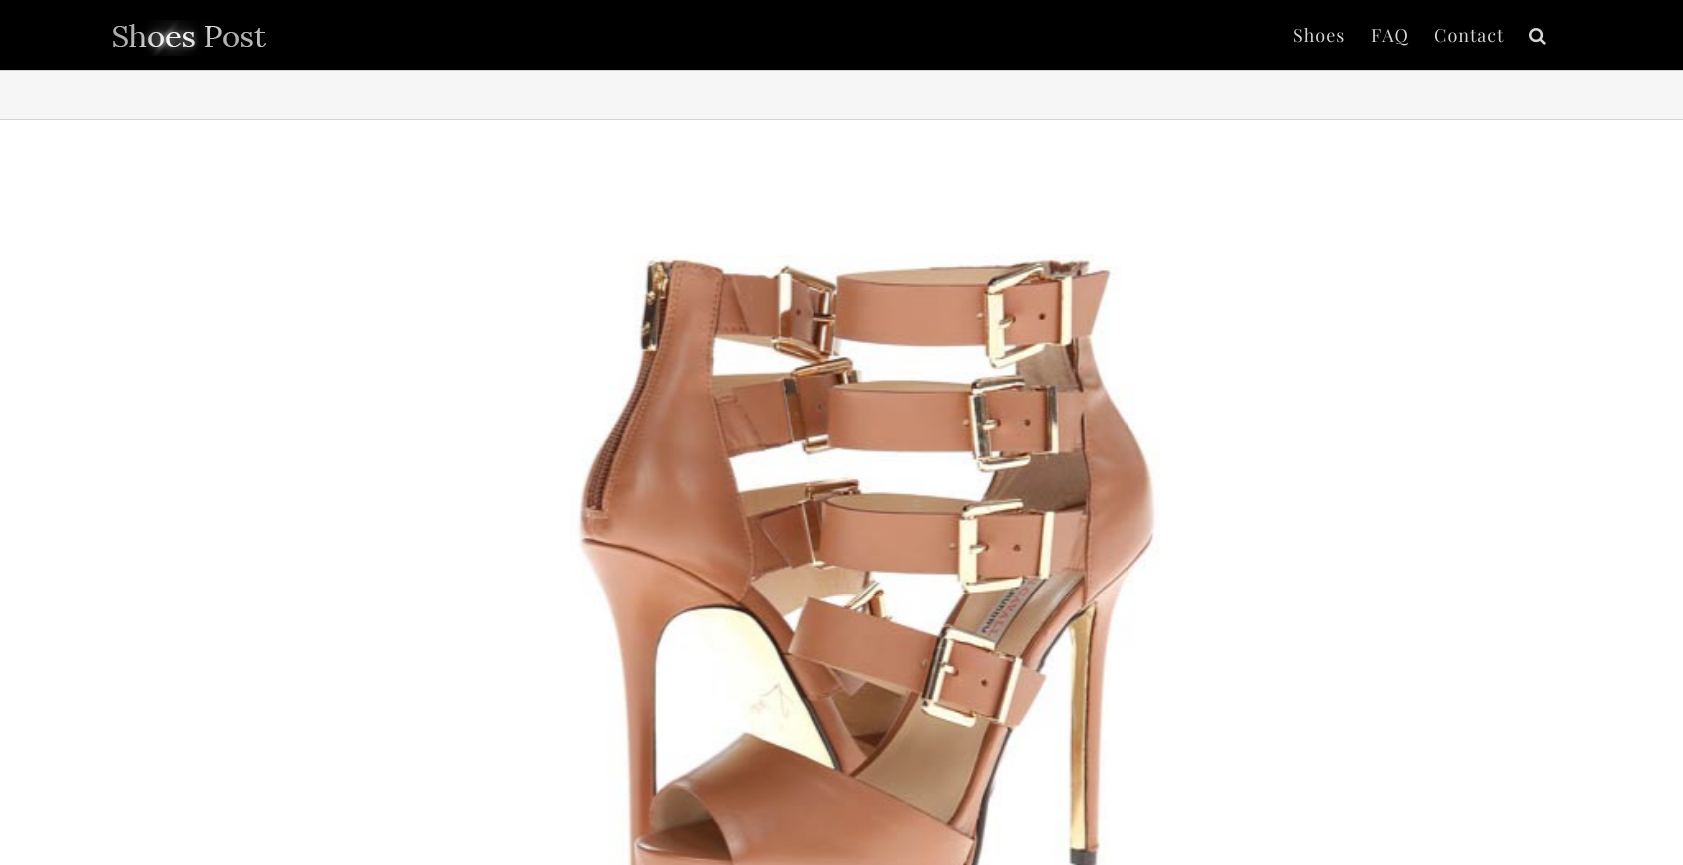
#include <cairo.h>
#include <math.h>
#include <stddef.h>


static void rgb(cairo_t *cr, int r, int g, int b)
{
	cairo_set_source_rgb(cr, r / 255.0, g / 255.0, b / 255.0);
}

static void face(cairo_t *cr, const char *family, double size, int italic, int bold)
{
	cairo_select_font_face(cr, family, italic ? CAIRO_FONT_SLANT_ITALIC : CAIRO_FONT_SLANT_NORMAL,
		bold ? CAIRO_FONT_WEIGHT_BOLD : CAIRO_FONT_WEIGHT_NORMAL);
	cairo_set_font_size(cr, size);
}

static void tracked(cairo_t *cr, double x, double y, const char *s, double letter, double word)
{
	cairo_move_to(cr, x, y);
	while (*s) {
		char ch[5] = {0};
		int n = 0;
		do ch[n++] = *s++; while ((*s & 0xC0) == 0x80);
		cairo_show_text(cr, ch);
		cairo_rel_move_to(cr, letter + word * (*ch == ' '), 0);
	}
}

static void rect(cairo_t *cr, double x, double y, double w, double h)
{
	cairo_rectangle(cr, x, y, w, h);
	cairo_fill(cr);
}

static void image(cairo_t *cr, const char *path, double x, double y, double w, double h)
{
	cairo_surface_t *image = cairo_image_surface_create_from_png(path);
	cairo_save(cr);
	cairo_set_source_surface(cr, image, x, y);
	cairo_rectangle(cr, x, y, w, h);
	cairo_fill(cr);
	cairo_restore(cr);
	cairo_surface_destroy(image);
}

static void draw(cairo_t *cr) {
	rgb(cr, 255, 255, 255);
	cairo_paint(cr);
	rgb(cr, 0, 0, 0);
	rect(cr, 0, 0, 1683, 70);
	image(cr, "image0.png", 113, 20, 153, 36);
	face(cr, "Playfair Display", 18, 0, 0);
	rgb(cr, 214, 214, 214);
	tracked(cr, 1293, 42, "Shoes", 1, 0);
	tracked(cr, 1371, 42, "FAQ", 1, 0);
	tracked(cr, 1434, 42, "Contact", 1, 0);
	image(cr, "image1.png", 1529, 28, 17, 17);
	rgb(cr, 246, 246, 246);
	rect(cr, 0, 71, 1683, 48);
	rgb(cr, 210, 211, 212);
	rect(cr, 0, 70, 1683, 1);
	rect(cr, 0, 119, 1683, 1);
	image(cr, "image2.png", 570, 254, 590, 611);
}

int main(void) {
	cairo_surface_t *surface = cairo_image_surface_create(CAIRO_FORMAT_RGB24, 1683, 865);
	cairo_t *cr = cairo_create(surface);
	cairo_font_options_t *options = cairo_font_options_create();
	cairo_font_options_set_hint_metrics(options, CAIRO_HINT_METRICS_OFF);
	cairo_font_options_set_hint_style(options, CAIRO_HINT_STYLE_NONE);
	cairo_set_font_options(cr, options);
	cairo_set_miter_limit(cr, 4);
	draw(cr);
	cairo_surface_write_to_png(surface, "render.png");
	cairo_font_options_destroy(options);
	cairo_destroy(cr);
	cairo_surface_destroy(surface);
	return 0;
}
